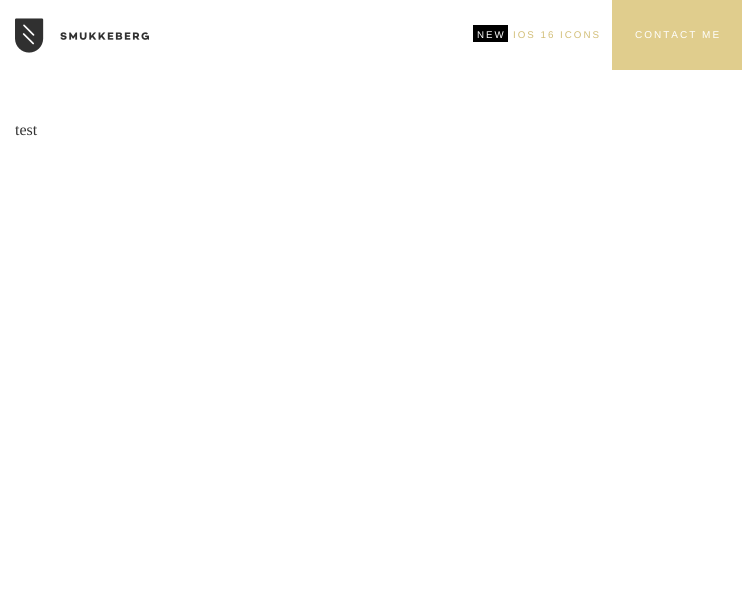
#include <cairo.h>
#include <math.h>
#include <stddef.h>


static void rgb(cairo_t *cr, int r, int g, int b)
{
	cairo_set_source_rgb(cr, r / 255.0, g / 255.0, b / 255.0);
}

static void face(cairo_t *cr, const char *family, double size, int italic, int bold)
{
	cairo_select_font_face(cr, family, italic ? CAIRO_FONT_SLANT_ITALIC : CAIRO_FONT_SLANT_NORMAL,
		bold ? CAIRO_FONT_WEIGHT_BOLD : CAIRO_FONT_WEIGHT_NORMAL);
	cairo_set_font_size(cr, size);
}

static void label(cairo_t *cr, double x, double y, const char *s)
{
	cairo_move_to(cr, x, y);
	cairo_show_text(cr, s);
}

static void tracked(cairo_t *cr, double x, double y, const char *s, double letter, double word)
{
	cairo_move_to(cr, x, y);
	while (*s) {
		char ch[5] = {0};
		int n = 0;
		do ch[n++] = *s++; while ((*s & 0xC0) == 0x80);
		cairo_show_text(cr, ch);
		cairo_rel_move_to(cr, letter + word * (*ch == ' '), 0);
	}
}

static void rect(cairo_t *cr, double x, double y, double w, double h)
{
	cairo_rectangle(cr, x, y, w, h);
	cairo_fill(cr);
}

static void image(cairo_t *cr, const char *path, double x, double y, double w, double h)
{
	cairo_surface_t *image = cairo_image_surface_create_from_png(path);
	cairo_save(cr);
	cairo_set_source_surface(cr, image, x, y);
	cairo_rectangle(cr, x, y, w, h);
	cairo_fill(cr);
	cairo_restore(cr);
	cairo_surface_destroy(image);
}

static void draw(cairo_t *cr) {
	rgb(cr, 255, 255, 255);
	cairo_paint(cr);
	image(cr, "image0.png", 15, 18, 134, 35);
	rgb(cr, 0, 0, 0);
	rect(cr, 473, 25, 35, 17);
	face(cr, "Liberation Sans", 9.75, 0, 0);
	rgb(cr, 255, 255, 255);
	tracked(cr, 477, 38, "NEW", 2, 0);
	rgb(cr, 210, 190, 119);
	tracked(cr, 513, 38, "IOS 16 ICONS", 2, 0);
	rgb(cr, 224, 205, 141);
	rect(cr, 612, 0, 130, 70);
	face(cr, "Liberation Sans", 10, 0, 0);
	rgb(cr, 255, 255, 255);
	tracked(cr, 635, 38, "CONTACT ME", 2, 0);
	face(cr, "Liberation Serif", 16, 0, 0);
	rgb(cr, 51, 51, 51);
	label(cr, 15, 135, "test");
}

int main(void) {
	cairo_surface_t *surface = cairo_image_surface_create(CAIRO_FORMAT_RGB24, 742, 596);
	cairo_t *cr = cairo_create(surface);
	cairo_font_options_t *options = cairo_font_options_create();
	cairo_font_options_set_hint_metrics(options, CAIRO_HINT_METRICS_OFF);
	cairo_font_options_set_hint_style(options, CAIRO_HINT_STYLE_NONE);
	cairo_set_font_options(cr, options);
	cairo_set_miter_limit(cr, 4);
	draw(cr);
	cairo_surface_write_to_png(surface, "render.png");
	cairo_font_options_destroy(options);
	cairo_destroy(cr);
	cairo_surface_destroy(surface);
	return 0;
}
